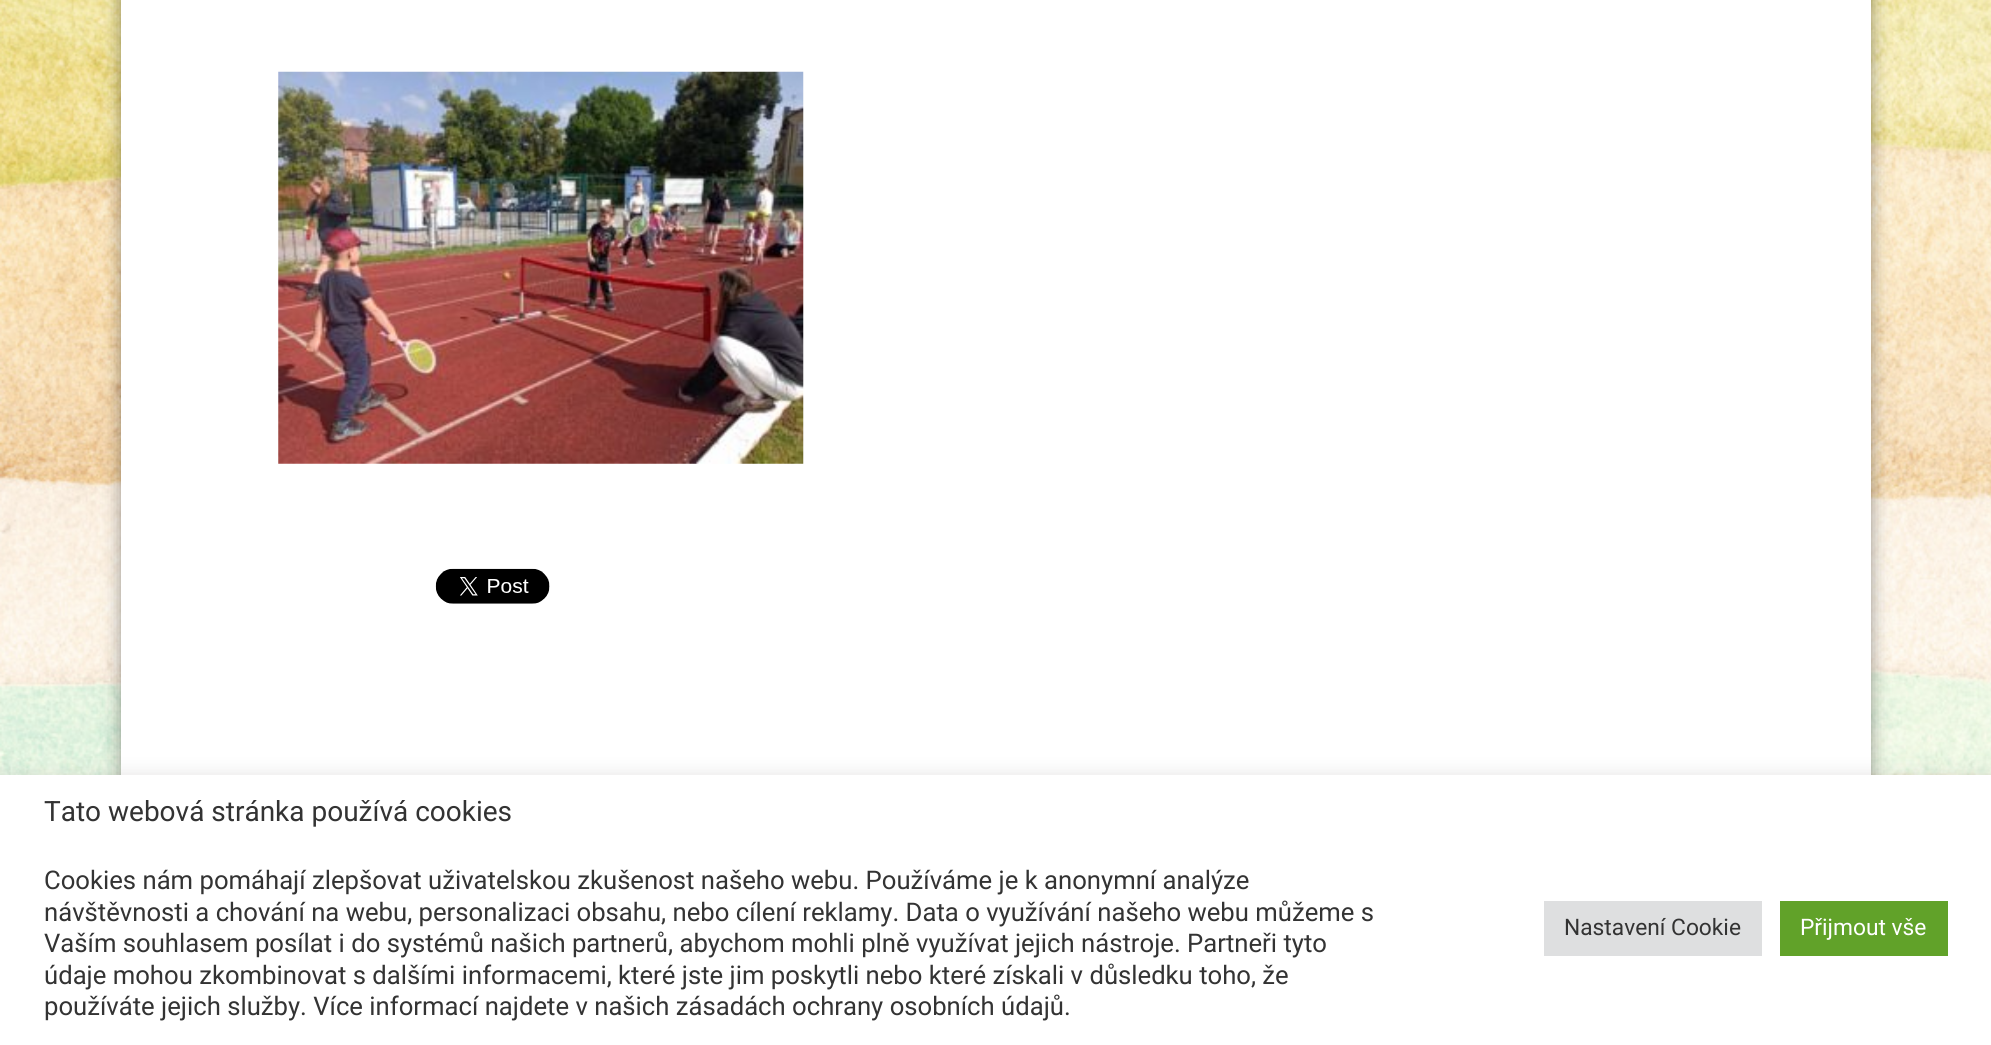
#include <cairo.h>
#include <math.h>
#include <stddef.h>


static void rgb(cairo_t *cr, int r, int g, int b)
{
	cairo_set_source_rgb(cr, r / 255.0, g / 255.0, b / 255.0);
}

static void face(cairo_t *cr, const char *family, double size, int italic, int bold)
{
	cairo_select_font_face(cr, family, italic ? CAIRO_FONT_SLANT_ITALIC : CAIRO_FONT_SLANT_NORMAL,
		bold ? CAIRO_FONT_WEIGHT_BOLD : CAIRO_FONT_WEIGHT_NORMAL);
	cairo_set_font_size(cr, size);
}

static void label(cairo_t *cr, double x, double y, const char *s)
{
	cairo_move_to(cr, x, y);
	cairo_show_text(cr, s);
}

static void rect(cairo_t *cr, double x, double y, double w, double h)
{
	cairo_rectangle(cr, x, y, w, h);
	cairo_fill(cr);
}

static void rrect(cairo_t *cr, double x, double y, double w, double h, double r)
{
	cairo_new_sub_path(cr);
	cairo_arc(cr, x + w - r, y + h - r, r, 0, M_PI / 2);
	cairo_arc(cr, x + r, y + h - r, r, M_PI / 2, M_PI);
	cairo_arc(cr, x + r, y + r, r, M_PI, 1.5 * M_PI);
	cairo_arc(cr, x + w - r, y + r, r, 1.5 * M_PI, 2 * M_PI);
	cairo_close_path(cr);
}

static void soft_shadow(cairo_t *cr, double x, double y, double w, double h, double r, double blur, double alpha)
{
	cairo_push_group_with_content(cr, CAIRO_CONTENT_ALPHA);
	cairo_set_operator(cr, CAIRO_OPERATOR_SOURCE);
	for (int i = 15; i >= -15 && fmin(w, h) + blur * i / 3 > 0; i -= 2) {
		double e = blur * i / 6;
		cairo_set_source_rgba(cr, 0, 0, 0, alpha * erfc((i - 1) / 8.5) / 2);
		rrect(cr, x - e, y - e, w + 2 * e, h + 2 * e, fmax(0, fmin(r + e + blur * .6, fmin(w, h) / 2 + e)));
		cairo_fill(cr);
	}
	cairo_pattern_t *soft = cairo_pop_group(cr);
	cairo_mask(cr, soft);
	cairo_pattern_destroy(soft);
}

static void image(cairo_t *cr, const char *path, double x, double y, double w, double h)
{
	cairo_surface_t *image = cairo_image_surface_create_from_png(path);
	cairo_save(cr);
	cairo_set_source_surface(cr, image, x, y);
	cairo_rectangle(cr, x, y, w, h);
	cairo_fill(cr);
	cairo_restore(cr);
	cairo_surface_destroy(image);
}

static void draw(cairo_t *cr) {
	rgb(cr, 255, 255, 255);
	cairo_paint(cr);
	image(cr, "image0.png", 0, 0, 1991, 775);
	rgb(cr, 0, 0, 0);
	soft_shadow(cr, 121, -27, 1750, 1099, 0, 9, 0.4);
	rgb(cr, 255, 255, 255);
	rect(cr, 121, 0, 1750, 775);
	image(cr, "image1.png", 278, 71, 526, 393);
	image(cr, "image2.png", 435, 568, 115, 36);
	rgb(cr, 172, 171, 171);
	soft_shadow(cr, 0, 774, 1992, 271, 0, 9, 0.3);
	rgb(cr, 255, 255, 255);
	rect(cr, 0, 775, 1991, 270);
	face(cr, "Roboto", 28, 0, 0);
	rgb(cr, 51, 51, 51);
	label(cr, 44, 821, "Tato webová stránka používá cookies");
	face(cr, "Roboto", 25.67, 0, 0);
	label(cr, 44, 889, "Cookies nám pomáhají zlepšovat uživatelskou zkušenost našeho webu. Používáme je k anonymní analýze");
	label(cr, 44, 921, "návštěvnosti a chování na webu, personalizaci obsahu, nebo cílení reklamy. Data o využívání našeho webu můžeme s");
	label(cr, 44, 952, "Vaším souhlasem posílat i do systémů našich partnerů, abychom mohli plně využívat jejich nástroje. Partneři tyto");
	label(cr, 44, 984, "údaje mohou zkombinovat s dalšími informacemi, které jste jim poskytli nebo které získali v důsledku toho, že");
	label(cr, 44, 1015, "používáte jejich služby. Více informací najdete v našich zásadách ochrany osobních údajů.");
	rgb(cr, 222, 223, 224);
	rect(cr, 1544, 901, 218, 55);
	face(cr, "Roboto", 22.75, 0, 0);
	rgb(cr, 51, 51, 51);
	label(cr, 1564, 935, "Nastavení Cookie");
	rgb(cr, 97, 162, 41);
	rect(cr, 1780, 901, 168, 55);
	rgb(cr, 255, 255, 255);
	label(cr, 1800, 935, "Přijmout vše");
}

int main(void) {
	cairo_surface_t *surface = cairo_image_surface_create(CAIRO_FORMAT_RGB24, 1991, 1045);
	cairo_t *cr = cairo_create(surface);
	cairo_font_options_t *options = cairo_font_options_create();
	cairo_font_options_set_hint_metrics(options, CAIRO_HINT_METRICS_OFF);
	cairo_font_options_set_hint_style(options, CAIRO_HINT_STYLE_NONE);
	cairo_set_font_options(cr, options);
	cairo_set_miter_limit(cr, 4);
	draw(cr);
	cairo_surface_write_to_png(surface, "render.png");
	cairo_font_options_destroy(options);
	cairo_destroy(cr);
	cairo_surface_destroy(surface);
	return 0;
}
